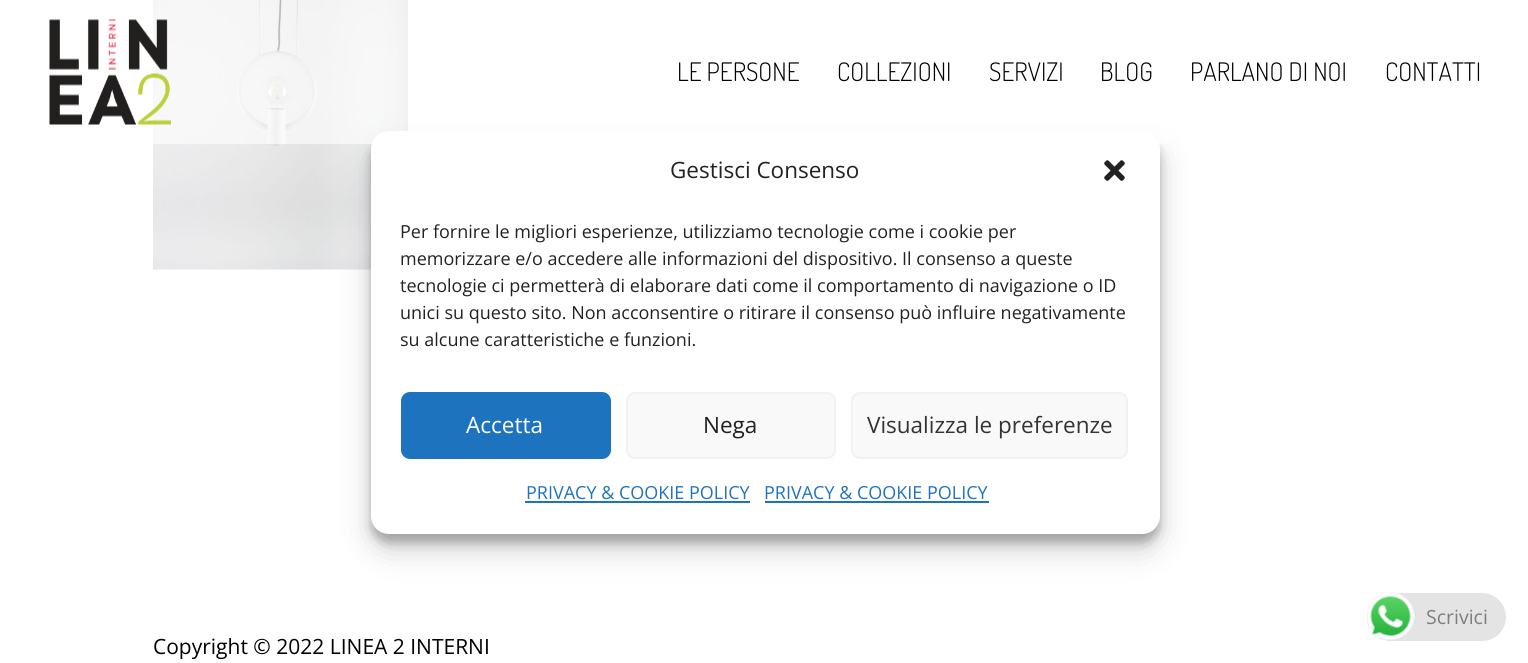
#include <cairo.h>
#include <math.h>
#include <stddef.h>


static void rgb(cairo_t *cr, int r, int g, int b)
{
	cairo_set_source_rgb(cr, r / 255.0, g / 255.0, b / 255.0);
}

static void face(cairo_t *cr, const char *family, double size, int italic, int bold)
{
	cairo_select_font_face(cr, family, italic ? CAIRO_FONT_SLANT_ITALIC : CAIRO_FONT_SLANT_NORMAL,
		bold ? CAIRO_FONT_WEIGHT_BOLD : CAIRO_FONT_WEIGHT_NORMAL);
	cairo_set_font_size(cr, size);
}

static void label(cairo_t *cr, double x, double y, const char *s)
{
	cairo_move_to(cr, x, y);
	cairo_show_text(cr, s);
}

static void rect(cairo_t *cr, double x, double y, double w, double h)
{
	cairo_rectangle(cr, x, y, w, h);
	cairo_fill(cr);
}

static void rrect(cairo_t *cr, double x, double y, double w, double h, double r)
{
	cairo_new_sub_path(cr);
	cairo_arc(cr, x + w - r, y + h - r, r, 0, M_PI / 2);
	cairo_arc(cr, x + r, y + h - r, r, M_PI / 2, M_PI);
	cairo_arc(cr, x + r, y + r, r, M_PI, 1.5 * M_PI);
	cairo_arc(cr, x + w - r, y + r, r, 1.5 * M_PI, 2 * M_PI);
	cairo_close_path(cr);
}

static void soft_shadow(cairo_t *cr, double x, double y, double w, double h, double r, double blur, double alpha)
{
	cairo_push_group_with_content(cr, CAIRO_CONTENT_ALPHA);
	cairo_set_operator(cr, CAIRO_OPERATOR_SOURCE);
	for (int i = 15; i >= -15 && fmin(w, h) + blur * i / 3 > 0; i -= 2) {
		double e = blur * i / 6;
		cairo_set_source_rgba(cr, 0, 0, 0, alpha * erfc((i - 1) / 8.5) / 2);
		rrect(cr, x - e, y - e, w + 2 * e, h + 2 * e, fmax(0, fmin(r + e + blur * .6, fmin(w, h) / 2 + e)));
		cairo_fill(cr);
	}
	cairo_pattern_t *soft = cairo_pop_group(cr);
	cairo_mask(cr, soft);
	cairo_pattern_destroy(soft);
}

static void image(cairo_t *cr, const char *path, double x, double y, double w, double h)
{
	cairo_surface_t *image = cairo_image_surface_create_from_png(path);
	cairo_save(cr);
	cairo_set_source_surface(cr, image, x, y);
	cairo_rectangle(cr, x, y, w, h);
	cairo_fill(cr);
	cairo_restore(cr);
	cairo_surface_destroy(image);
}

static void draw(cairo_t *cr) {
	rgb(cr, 255, 255, 255);
	cairo_paint(cr);
	image(cr, "image1.png", 153, 0, 255, 270);
	rgb(cr, 0, 0, 0);
	soft_shadow(cr, 371, 140, 789, 403, 18, 4.5, 0.23);
	soft_shadow(cr, 371, 146, 789, 403, 18, 15, 0.19);
	rgb(cr, 255, 255, 255);
	rrect(cr, 371, 131, 789, 403, 18);
	cairo_fill(cr);
	cairo_set_source_rgba(cr, 1, 1, 1, 0.59);
	rect(cr, 153, 0, 1016, 144);
	image(cr, "image0.png", 49, 19, 122, 106);
	face(cr, "Dosis Light", 25.5, 0, 0);
	rgb(cr, 0, 0, 0);
	label(cr, 677, 81, "LE PERSONE");
	label(cr, 837, 81, "COLLEZIONI");
	label(cr, 989, 81, "SERVIZI");
	label(cr, 1100, 81, "BLOG");
	label(cr, 1190, 81, "PARLANO DI NOI");
	label(cr, 1385, 81, "CONTATTI");
	face(cr, "Open Sans", 21, 0, 0);
	label(cr, 153, 654, "Copyright © 2022 LINEA 2 INTERNI");
	face(cr, "Open Sans", 22.5, 0, 0);
	rgb(cr, 34, 34, 34);
	label(cr, 670, 178, "Gestisci Consenso");
	image(cr, "image2.png", 1104, 160, 21, 21);
	face(cr, "Open Sans", 18, 0, 0);
	label(cr, 400, 238, "Per fornire le migliori esperienze, utilizziamo tecnologie come i cookie per");
	label(cr, 400, 265, "memorizzare e/o accedere alle informazioni del dispositivo. Il consenso a queste");
	label(cr, 400, 292, "tecnologie ci permetterà di elaborare dati come il comportamento di navigazione o ID");
	label(cr, 400, 319, "unici su questo sito. Non acconsentire o ritirare il consenso può influire negativamente");
	cairo_save(cr);
	cairo_rectangle(cr, 401, 219, 729, 143);
	cairo_clip(cr);
	label(cr, 400, 346, "su alcune caratteristiche e funzioni.");
	cairo_restore(cr);
	rgb(cr, 30, 115, 190);
	rrect(cr, 402, 393, 208, 65, 8);
	cairo_fill_preserve(cr);
	cairo_stroke(cr);
	face(cr, "Open Sans", 22.5, 0, 0);
	rgb(cr, 255, 255, 255);
	label(cr, 466, 433, "Accetta");
	rgb(cr, 249, 249, 249);
	rrect(cr, 627, 393, 208, 65, 8);
	cairo_fill_preserve(cr);
	rgb(cr, 242, 242, 242);
	cairo_stroke(cr);
	rgb(cr, 34, 34, 34);
	label(cr, 703, 433, "Nega");
	rgb(cr, 249, 249, 249);
	rrect(cr, 852, 393, 275, 65, 8);
	cairo_fill_preserve(cr);
	rgb(cr, 242, 242, 242);
	cairo_stroke(cr);
	rgb(cr, 51, 51, 51);
	label(cr, 867, 433, "Visualizza le preferenze");
	face(cr, "Open Sans", 18, 0, 0);
	rgb(cr, 30, 115, 190);
	label(cr, 526, 499, "PRIVACY & COOKIE POLICY");
	rect(cr, 525, 501, 225, 2);
	label(cr, 764, 499, "PRIVACY & COOKIE POLICY");
	rect(cr, 765, 501, 224, 2);
	rgb(cr, 228, 228, 228);
	rrect(cr, 1367, 593, 139, 48, 24);
	cairo_fill(cr);
	image(cr, "image3.png", 1366, 593, 49, 48);
	face(cr, "Open Sans", 19.5, 0, 0);
	rgb(cr, 127, 125, 125);
	label(cr, 1426, 624, "Scrivici");
}

int main(void) {
	cairo_surface_t *surface = cairo_image_surface_create(CAIRO_FORMAT_RGB24, 1528, 663);
	cairo_t *cr = cairo_create(surface);
	cairo_font_options_t *options = cairo_font_options_create();
	cairo_font_options_set_hint_metrics(options, CAIRO_HINT_METRICS_OFF);
	cairo_font_options_set_hint_style(options, CAIRO_HINT_STYLE_NONE);
	cairo_set_font_options(cr, options);
	cairo_set_miter_limit(cr, 4);
	draw(cr);
	cairo_surface_write_to_png(surface, "render.png");
	cairo_font_options_destroy(options);
	cairo_destroy(cr);
	cairo_surface_destroy(surface);
	return 0;
}
